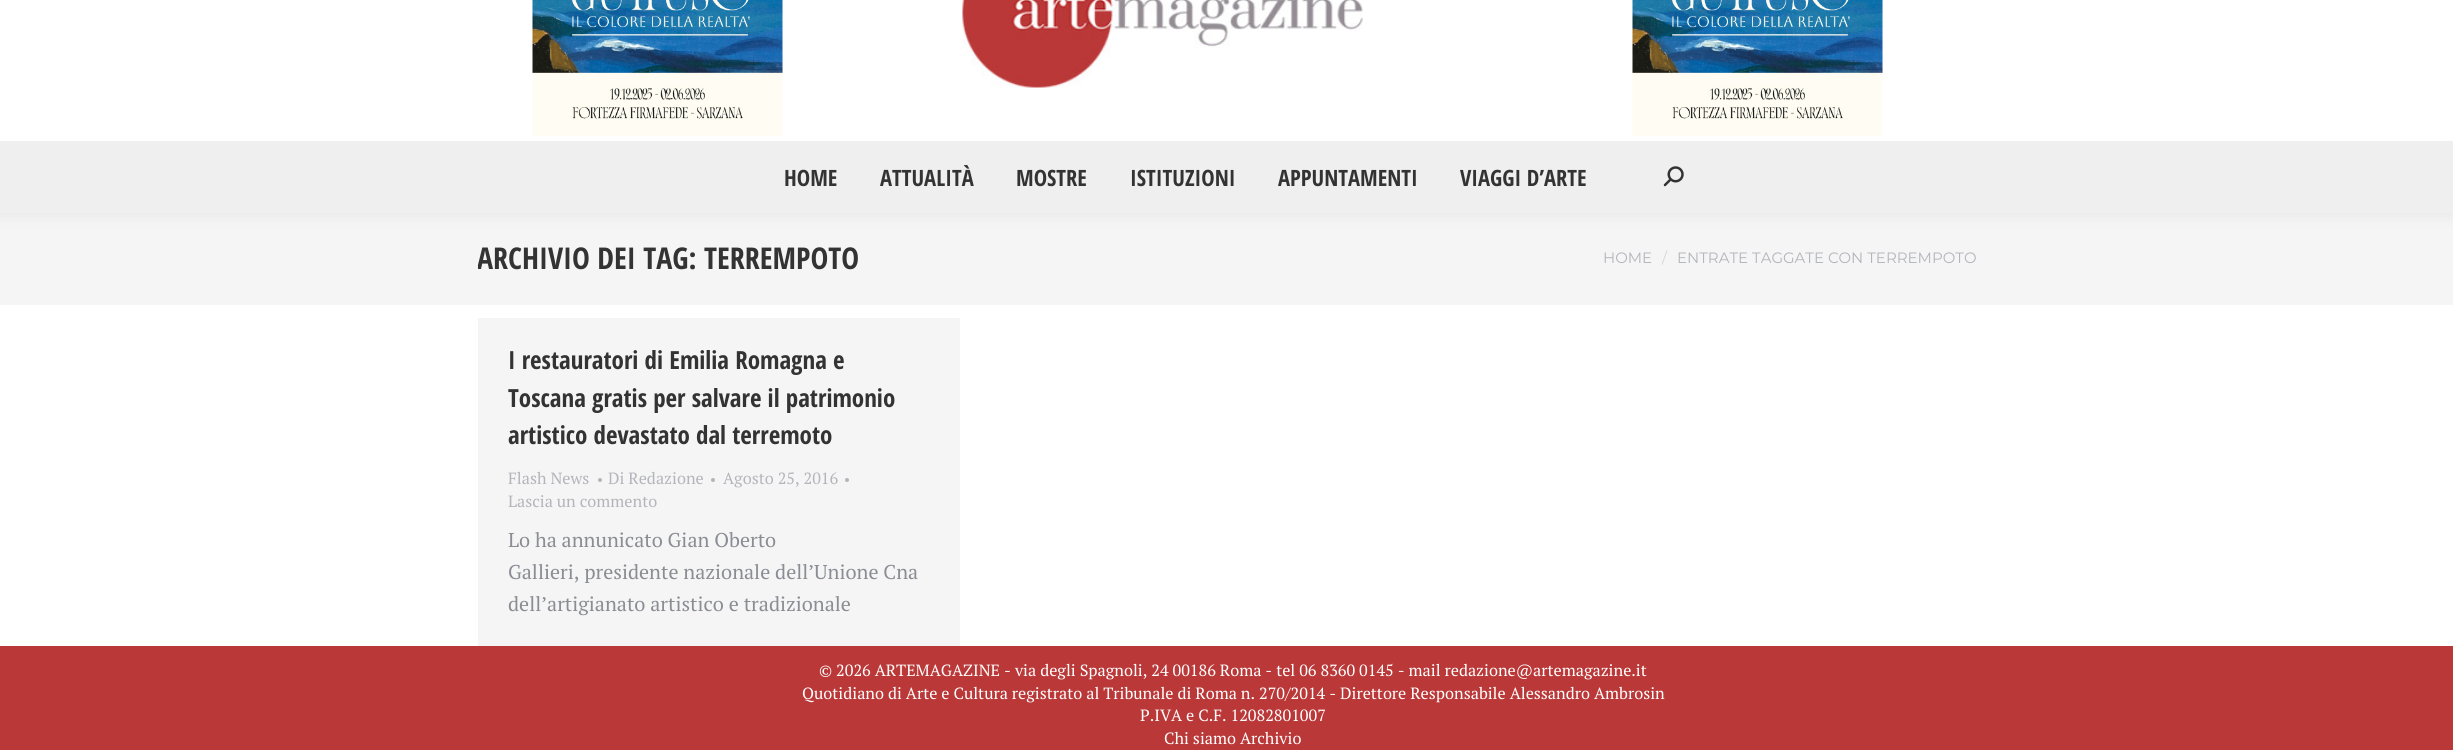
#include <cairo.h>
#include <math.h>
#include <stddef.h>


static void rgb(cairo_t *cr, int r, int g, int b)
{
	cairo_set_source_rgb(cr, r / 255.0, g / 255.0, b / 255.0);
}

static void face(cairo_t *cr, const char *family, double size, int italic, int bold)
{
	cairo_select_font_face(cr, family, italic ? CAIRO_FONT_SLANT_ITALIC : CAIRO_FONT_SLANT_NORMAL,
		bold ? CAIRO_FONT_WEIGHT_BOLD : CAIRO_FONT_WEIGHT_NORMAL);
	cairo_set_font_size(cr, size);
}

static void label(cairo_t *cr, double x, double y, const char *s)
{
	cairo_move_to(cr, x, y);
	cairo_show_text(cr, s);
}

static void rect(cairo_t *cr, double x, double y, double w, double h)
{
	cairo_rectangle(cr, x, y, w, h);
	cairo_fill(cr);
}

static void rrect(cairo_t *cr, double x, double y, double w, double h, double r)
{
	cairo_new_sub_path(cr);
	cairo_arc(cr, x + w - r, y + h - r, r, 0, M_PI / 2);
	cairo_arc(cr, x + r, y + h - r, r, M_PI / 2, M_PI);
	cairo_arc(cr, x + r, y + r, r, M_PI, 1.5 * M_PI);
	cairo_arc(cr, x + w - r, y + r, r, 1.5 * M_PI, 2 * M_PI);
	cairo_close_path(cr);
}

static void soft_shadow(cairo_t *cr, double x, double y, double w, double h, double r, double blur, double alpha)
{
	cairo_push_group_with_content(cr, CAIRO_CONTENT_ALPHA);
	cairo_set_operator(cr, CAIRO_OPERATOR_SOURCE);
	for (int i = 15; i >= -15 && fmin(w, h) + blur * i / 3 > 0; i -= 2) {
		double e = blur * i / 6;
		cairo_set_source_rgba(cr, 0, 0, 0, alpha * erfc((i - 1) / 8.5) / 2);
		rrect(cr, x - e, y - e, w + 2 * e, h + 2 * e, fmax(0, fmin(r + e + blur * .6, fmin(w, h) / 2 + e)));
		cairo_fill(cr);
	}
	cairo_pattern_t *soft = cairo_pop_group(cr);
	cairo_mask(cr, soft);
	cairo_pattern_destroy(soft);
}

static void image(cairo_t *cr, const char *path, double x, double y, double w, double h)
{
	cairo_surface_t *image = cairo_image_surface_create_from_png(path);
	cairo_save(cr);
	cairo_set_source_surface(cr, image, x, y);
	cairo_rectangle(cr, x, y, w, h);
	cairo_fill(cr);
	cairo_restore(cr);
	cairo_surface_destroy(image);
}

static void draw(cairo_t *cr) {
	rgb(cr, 255, 255, 255);
	cairo_paint(cr);
	rgb(cr, 245, 245, 245);
	rect(cr, 0, 213, 2453, 92);
	rgb(cr, 0, 0, 0);
	soft_shadow(cr, -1, -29, 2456, 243, 0, 9.5, 0.07);
	rgb(cr, 255, 255, 255);
	rect(cr, 0, 0, 2453, 141);
	image(cr, "image0.png", 532, 0, 251, 136);
	image(cr, "image1.png", 962, 0, 401, 88);
	image(cr, "image2.png", 1632, 0, 251, 136);
	rgb(cr, 239, 239, 239);
	rect(cr, 0, 141, 2453, 72);
	face(cr, "Open Sans Condensed", 22.5, 0, 1);
	rgb(cr, 51, 51, 51);
	label(cr, 784, 186, "HOME");
	label(cr, 880, 186, "ATTUALITÀ");
	label(cr, 1016, 186, "MOSTRE");
	label(cr, 1130, 186, "ISTITUZIONI");
	label(cr, 1278, 186, "APPUNTAMENTI");
	label(cr, 1460, 186, "VIAGGI D’ARTE");
	image(cr, "image3.png", 1663, 166, 21, 21);
	cairo_save(cr);
	cairo_rectangle(cr, 478, 238, 381, 42);
	cairo_clip(cr);
	face(cr, "Open Sans Condensed", 30, 0, 1);
	label(cr, 477, 269, "ARCHIVIO DEI TAG:");
	cairo_restore(cr);
	face(cr, "Open Sans Condensed", 30, 0, 1);
	label(cr, 704, 269, "TERREMPOTO");
	face(cr, "Montserrat", 15, 0, 0);
	rgb(cr, 180, 181, 187);
	label(cr, 1603, 263, "HOME");
	rgb(cr, 213, 213, 216);
	label(cr, 1662, 263, "/");
	rgb(cr, 180, 181, 187);
	label(cr, 1677, 263, "ENTRATE TAGGATE CON TERREMPOTO");
	rgb(cr, 245, 245, 245);
	rect(cr, 478, 318, 482, 328);
	face(cr, "Open Sans Condensed", 25, 0, 1);
	rgb(cr, 51, 51, 51);
	label(cr, 508, 369, "I restauratori di Emilia Romagna e");
	label(cr, 508, 407, "Toscana gratis per salvare il patrimonio");
	label(cr, 508, 444, "artistico devastato dal terremoto");
	face(cr, "PT Serif", 16.25, 0, 0);
	rgb(cr, 180, 181, 187);
	label(cr, 508, 484, "Flash News");
	cairo_new_path(cr);
	cairo_arc(cr, 600, 480, 2, 0, 2 * M_PI);
	cairo_fill(cr);
	label(cr, 608, 484, "Di Redazione");
	cairo_new_path(cr);
	cairo_arc(cr, 713, 480, 2, 0, 2 * M_PI);
	cairo_fill(cr);
	label(cr, 723, 484, "Agosto 25, 2016");
	cairo_new_path(cr);
	cairo_arc(cr, 847, 480, 2, 0, 2 * M_PI);
	cairo_fill(cr);
	label(cr, 508, 507, "Lascia un commento");
	face(cr, "PT Serif", 20, 0, 0);
	rgb(cr, 139, 141, 148);
	label(cr, 508, 547, "Lo ha annunicato Gian Oberto");
	label(cr, 508, 579, "Gallieri, presidente nazionale dell’Unione Cna");
	label(cr, 508, 611, "dell’artigianato artistico e tradizionale");
	rgb(cr, 186, 56, 56);
	rect(cr, 0, 646, 2453, 104);
	face(cr, "PT Serif", 16.25, 0, 0);
	rgb(cr, 255, 255, 255);
	label(cr, 819, 676, "© 2026 ARTEMAGAZINE - via degli Spagnoli, 24 00186 Roma - tel 06 8360 0145 - mail redazione@artemagazine.it");
	label(cr, 802, 699, "Quotidiano di Arte e Cultura registrato al Tribunale di Roma n. 270/2014 - Direttore Responsabile Alessandro Ambrosin");
	label(cr, 1140, 721, "P.IVA e C.F. 12082801007");
	label(cr, 1164, 744, "Chi siamo Archivio");
}

int main(void) {
	cairo_surface_t *surface = cairo_image_surface_create(CAIRO_FORMAT_RGB24, 2453, 750);
	cairo_t *cr = cairo_create(surface);
	cairo_font_options_t *options = cairo_font_options_create();
	cairo_font_options_set_hint_metrics(options, CAIRO_HINT_METRICS_OFF);
	cairo_font_options_set_hint_style(options, CAIRO_HINT_STYLE_NONE);
	cairo_set_font_options(cr, options);
	cairo_set_miter_limit(cr, 4);
	draw(cr);
	cairo_surface_write_to_png(surface, "render.png");
	cairo_font_options_destroy(options);
	cairo_destroy(cr);
	cairo_surface_destroy(surface);
	return 0;
}
